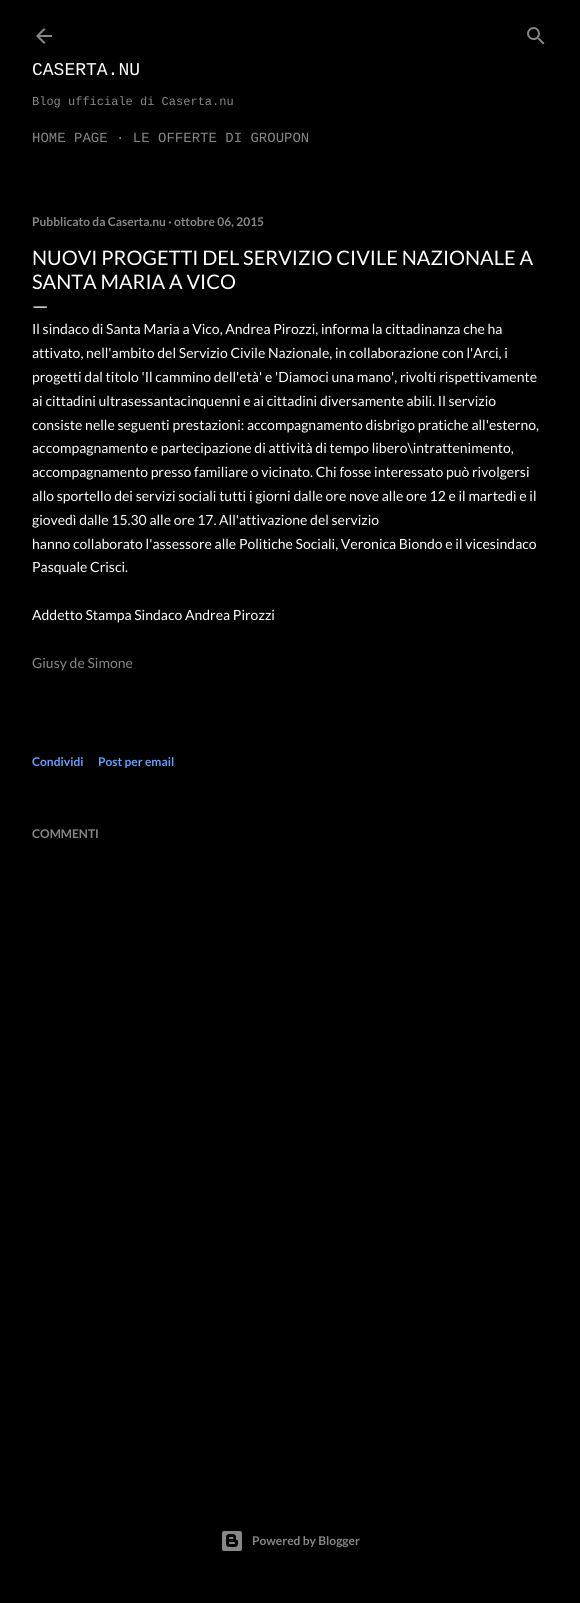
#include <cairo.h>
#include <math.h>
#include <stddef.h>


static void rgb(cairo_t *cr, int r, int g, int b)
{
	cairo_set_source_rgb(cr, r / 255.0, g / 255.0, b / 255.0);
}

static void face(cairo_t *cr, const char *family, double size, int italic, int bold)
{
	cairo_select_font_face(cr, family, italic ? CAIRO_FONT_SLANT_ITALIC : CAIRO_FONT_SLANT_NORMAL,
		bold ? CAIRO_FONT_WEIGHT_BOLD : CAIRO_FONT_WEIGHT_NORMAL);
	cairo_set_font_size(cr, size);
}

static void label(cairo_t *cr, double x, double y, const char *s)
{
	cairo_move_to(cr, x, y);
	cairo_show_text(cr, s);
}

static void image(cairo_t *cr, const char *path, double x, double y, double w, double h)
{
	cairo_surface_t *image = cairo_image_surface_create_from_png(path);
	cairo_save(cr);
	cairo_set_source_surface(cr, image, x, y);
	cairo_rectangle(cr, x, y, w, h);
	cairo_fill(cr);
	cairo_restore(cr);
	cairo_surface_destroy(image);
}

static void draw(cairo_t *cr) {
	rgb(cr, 0, 0, 0);
	cairo_paint(cr);
	image(cr, "image0.png", 36, 28, 16, 16);
	image(cr, "image1.png", 527, 27, 18, 18);
	face(cr, "Liberation Mono", 18, 0, 0);
	rgb(cr, 255, 255, 255);
	label(cr, 32, 75, "CASERTA.NU");
	face(cr, "Liberation Mono", 12, 0, 0);
	rgb(cr, 135, 135, 135);
	label(cr, 32, 105, "Blog ufficiale di Caserta.nu");
	face(cr, "Liberation Mono", 14, 0, 0);
	label(cr, 32, 142, "HOME PAGE · LE OFFERTE DI GROUPON");
	face(cr, "Lato", 12, 0, 1);
	label(cr, 32, 226, "Pubblicato da Caserta.nu · ottobre 06, 2015");
	face(cr, "Lato", 20, 0, 0);
	rgb(cr, 255, 255, 255);
	label(cr, 32, 265, "NUOVI PROGETTI DEL SERVIZIO CIVILE NAZIONALE A");
	label(cr, 32, 289, "SANTA MARIA A VICO");
	label(cr, 32, 313, "—");
	face(cr, "Lato", 14, 0, 0);
	label(cr, 32, 334, "Il sindaco di Santa Maria a Vico, Andrea Pirozzi, informa la cittadinanza che ha");
	label(cr, 32, 358, "attivato, nell'ambito del Servizio Civile Nazionale, in collaborazione con l'Arci, i");
	label(cr, 32, 382, "progetti dal titolo 'Il cammino dell'età' e 'Diamoci una mano', rivolti rispettivamente");
	label(cr, 32, 406, "ai cittadini ultrasessantacinquenni e ai cittadini diversamente abili. Il servizio");
	label(cr, 32, 430, "consiste nelle seguenti prestazioni: accompagnamento disbrigo pratiche all'esterno,");
	label(cr, 32, 453, "accompagnamento e partecipazione di attività di tempo libero\\intrattenimento,");
	label(cr, 32, 477, "accompagnamento presso familiare o vicinato. Chi fosse interessato può rivolgersi");
	label(cr, 32, 501, "allo sportello dei servizi sociali tutti i giorni dalle ore nove alle ore 12 e il martedì e il");
	label(cr, 32, 525, "giovedì dalle 15.30 alle ore 17. All'attivazione del servizio");
	label(cr, 32, 549, "hanno collaborato l'assessore alle Politiche Sociali, Veronica Biondo e il vicesindaco");
	label(cr, 32, 572, "Pasquale Crisci.");
	label(cr, 32, 620, "Addetto Stampa Sindaco Andrea Pirozzi");
	rgb(cr, 135, 135, 135);
	label(cr, 32, 668, "Giusy de Simone");
	face(cr, "Lato", 12, 0, 1);
	rgb(cr, 100, 159, 255);
	label(cr, 32, 766, "Condividi");
	label(cr, 98, 766, "Post per email");
	rgb(cr, 135, 135, 135);
	label(cr, 32, 838, "COMMENTI");
	image(cr, "image2.png", 222, 1531, 20, 20);
	label(cr, 252, 1545, "Powered by Blogger");
}

int main(void) {
	cairo_surface_t *surface = cairo_image_surface_create(CAIRO_FORMAT_RGB24, 580, 1603);
	cairo_t *cr = cairo_create(surface);
	cairo_font_options_t *options = cairo_font_options_create();
	cairo_font_options_set_hint_metrics(options, CAIRO_HINT_METRICS_OFF);
	cairo_font_options_set_hint_style(options, CAIRO_HINT_STYLE_NONE);
	cairo_set_font_options(cr, options);
	cairo_set_miter_limit(cr, 4);
	draw(cr);
	cairo_surface_write_to_png(surface, "render.png");
	cairo_font_options_destroy(options);
	cairo_destroy(cr);
	cairo_surface_destroy(surface);
	return 0;
}
